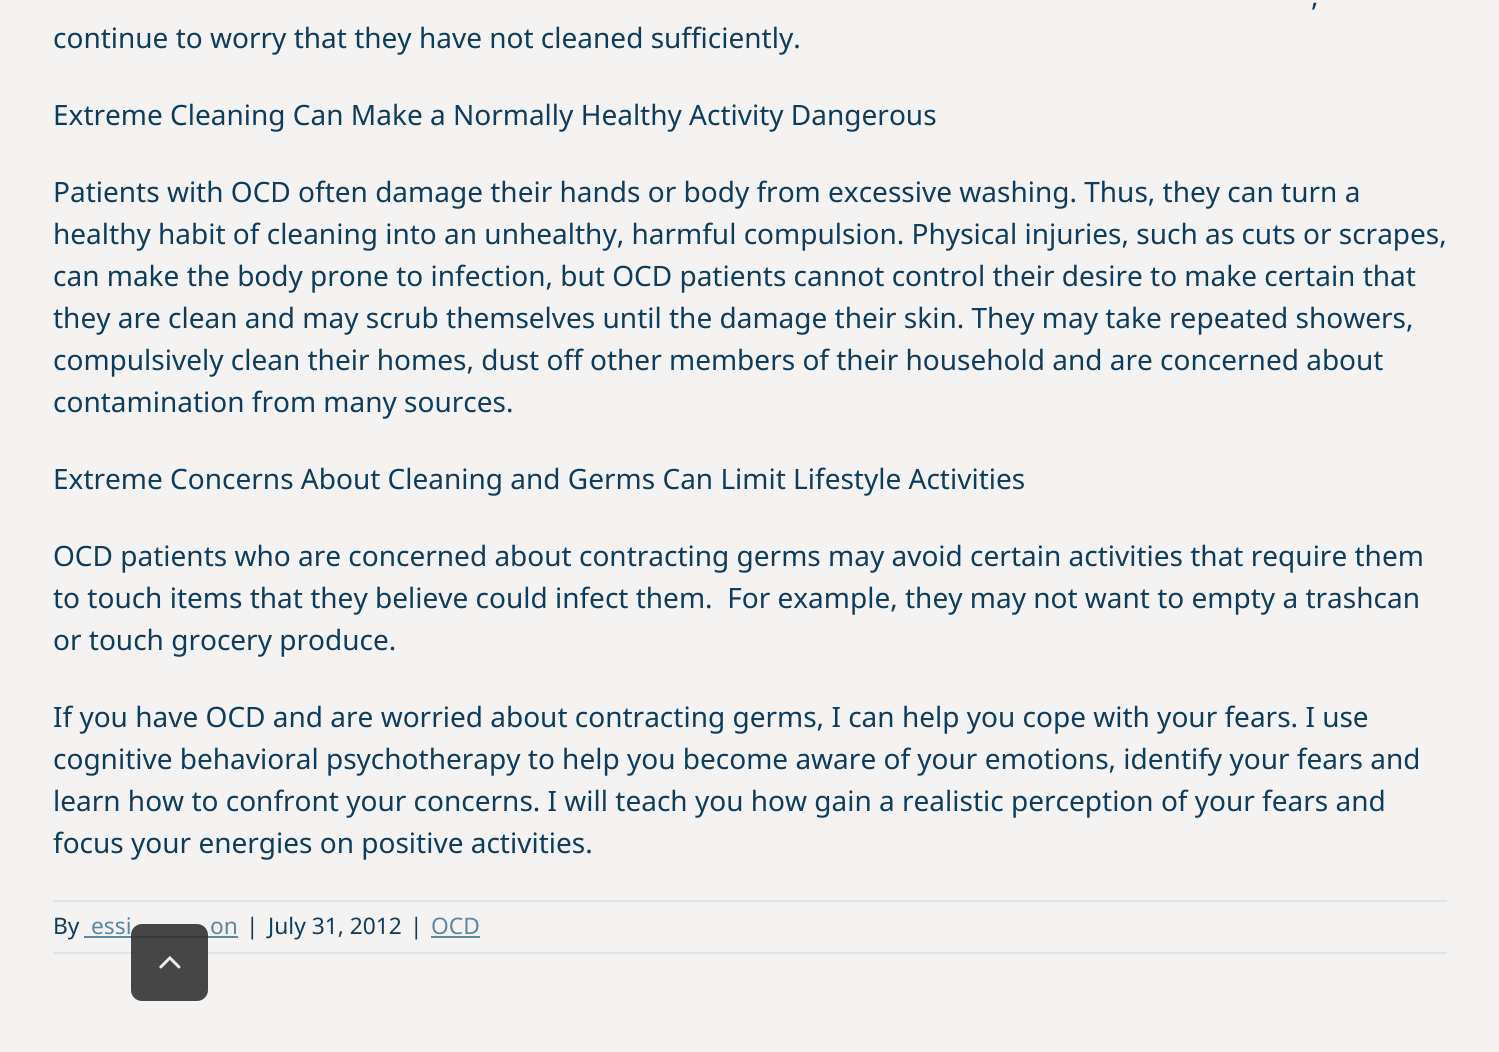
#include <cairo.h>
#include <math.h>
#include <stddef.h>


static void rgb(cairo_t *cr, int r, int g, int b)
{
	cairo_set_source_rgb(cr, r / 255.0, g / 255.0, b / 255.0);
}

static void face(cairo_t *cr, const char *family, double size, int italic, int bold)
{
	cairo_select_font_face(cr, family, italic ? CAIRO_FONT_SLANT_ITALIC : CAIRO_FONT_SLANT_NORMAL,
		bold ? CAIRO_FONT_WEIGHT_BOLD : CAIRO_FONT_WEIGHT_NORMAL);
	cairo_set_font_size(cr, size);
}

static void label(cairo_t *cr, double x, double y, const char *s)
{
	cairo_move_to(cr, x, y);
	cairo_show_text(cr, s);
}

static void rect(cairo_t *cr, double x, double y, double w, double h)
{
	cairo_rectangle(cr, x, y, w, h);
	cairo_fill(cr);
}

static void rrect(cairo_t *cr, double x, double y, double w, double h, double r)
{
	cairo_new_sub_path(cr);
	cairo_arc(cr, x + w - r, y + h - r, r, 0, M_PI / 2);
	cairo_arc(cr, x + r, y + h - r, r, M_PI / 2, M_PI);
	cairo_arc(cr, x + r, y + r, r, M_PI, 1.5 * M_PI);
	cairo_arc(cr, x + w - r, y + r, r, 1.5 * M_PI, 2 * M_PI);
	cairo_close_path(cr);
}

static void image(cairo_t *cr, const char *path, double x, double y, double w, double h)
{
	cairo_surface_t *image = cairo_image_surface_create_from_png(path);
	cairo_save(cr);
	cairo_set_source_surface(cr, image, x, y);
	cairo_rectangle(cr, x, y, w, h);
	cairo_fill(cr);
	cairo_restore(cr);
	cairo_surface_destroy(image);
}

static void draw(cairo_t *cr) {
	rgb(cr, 245, 243, 242);
	cairo_paint(cr);
	face(cr, "Noto Sans", 28, 0, 0);
	rgb(cr, 14, 60, 93);
	label(cr, 1311, 6, ",");
	label(cr, 53, 48, "continue to worry that they have not cleaned sufficiently.");
	label(cr, 53, 125, "Extreme Cleaning Can Make a Normally Healthy Activity Dangerous");
	label(cr, 53, 202, "Patients with OCD often damage their hands or body from excessive washing. Thus, they can turn a");
	label(cr, 53, 244, "healthy habit of cleaning into an unhealthy, harmful compulsion. Physical injuries, such as cuts or scrapes,");
	label(cr, 53, 286, "can make the body prone to infection, but OCD patients cannot control their desire to make certain that");
	label(cr, 53, 328, "they are clean and may scrub themselves until the damage their skin. They may take repeated showers,");
	label(cr, 53, 370, "compulsively clean their homes, dust off other members of their household and are concerned about");
	label(cr, 53, 412, "contamination from many sources.");
	label(cr, 53, 489, "Extreme Concerns About Cleaning and Germs Can Limit Lifestyle Activities");
	label(cr, 53, 566, "OCD patients who are concerned about contracting germs may avoid certain activities that require them");
	label(cr, 53, 608, "to touch items that they believe could infect them.  For example, they may not want to empty a trashcan");
	label(cr, 53, 650, "or touch grocery produce.");
	label(cr, 53, 727, "If you have OCD and are worried about contracting germs, I can help you cope with your fears. I use");
	label(cr, 53, 769, "cognitive behavioral psychotherapy to help you become aware of your emotions, identify your fears and");
	label(cr, 53, 811, "learn how to confront your concerns. I will teach you how gain a realistic perception of your fears and");
	label(cr, 53, 853, "focus your energies on positive activities.");
	rgb(cr, 226, 226, 226);
	rect(cr, 53, 900, 1394, 2);
	rect(cr, 53, 952, 1394, 2);
	face(cr, "Noto Sans", 22.75, 0, 0);
	rgb(cr, 14, 60, 93);
	label(cr, 53, 934, "By");
	rgb(cr, 92, 135, 162);
	label(cr, 91, 934, "essi");
	label(cr, 210, 934, "on");
	rect(cr, 84, 936, 154, 2);
	rgb(cr, 14, 60, 93);
	label(cr, 246, 934, "|");
	label(cr, 268, 934, "July 31, 2012");
	label(cr, 410, 934, "|");
	rgb(cr, 92, 135, 162);
	label(cr, 431, 934, "OCD");
	rect(cr, 431, 936, 49, 2);
	cairo_set_source_rgba(cr, 0.2, 0.2, 0.2, 0.9);
	rrect(cr, 131, 924, 77, 77, 11);
	cairo_fill(cr);
	image(cr, "image0.png", 159, 956, 22, 13);
}

int main(void) {
	cairo_surface_t *surface = cairo_image_surface_create(CAIRO_FORMAT_RGB24, 1499, 1052);
	cairo_t *cr = cairo_create(surface);
	cairo_font_options_t *options = cairo_font_options_create();
	cairo_font_options_set_hint_metrics(options, CAIRO_HINT_METRICS_OFF);
	cairo_font_options_set_hint_style(options, CAIRO_HINT_STYLE_NONE);
	cairo_set_font_options(cr, options);
	cairo_set_miter_limit(cr, 4);
	draw(cr);
	cairo_surface_write_to_png(surface, "render.png");
	cairo_font_options_destroy(options);
	cairo_destroy(cr);
	cairo_surface_destroy(surface);
	return 0;
}
